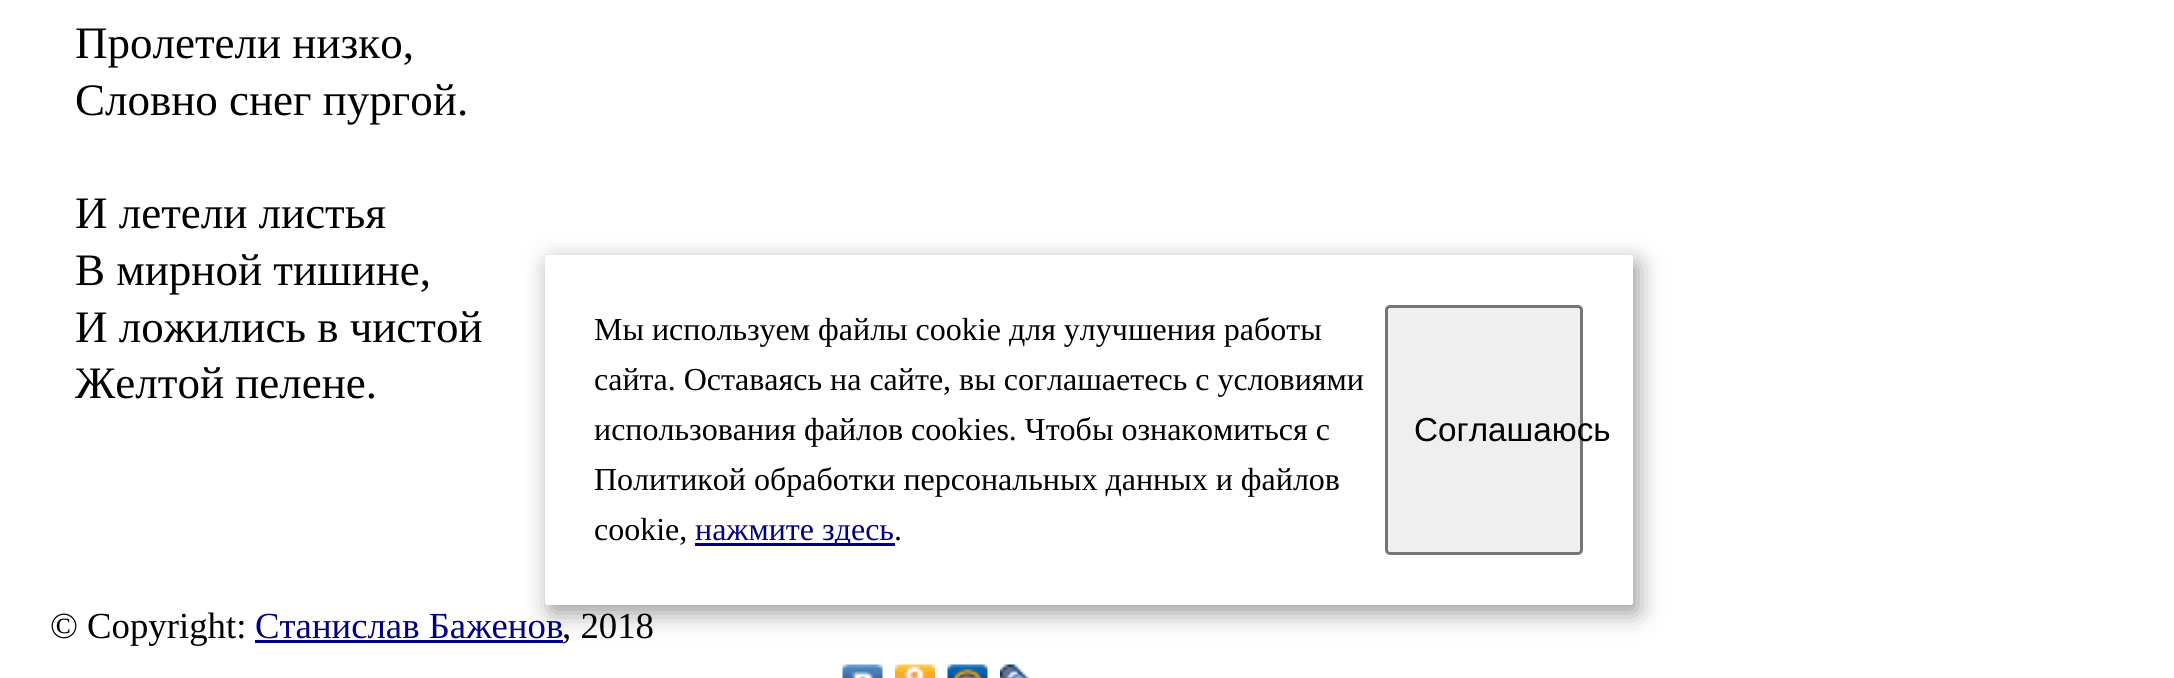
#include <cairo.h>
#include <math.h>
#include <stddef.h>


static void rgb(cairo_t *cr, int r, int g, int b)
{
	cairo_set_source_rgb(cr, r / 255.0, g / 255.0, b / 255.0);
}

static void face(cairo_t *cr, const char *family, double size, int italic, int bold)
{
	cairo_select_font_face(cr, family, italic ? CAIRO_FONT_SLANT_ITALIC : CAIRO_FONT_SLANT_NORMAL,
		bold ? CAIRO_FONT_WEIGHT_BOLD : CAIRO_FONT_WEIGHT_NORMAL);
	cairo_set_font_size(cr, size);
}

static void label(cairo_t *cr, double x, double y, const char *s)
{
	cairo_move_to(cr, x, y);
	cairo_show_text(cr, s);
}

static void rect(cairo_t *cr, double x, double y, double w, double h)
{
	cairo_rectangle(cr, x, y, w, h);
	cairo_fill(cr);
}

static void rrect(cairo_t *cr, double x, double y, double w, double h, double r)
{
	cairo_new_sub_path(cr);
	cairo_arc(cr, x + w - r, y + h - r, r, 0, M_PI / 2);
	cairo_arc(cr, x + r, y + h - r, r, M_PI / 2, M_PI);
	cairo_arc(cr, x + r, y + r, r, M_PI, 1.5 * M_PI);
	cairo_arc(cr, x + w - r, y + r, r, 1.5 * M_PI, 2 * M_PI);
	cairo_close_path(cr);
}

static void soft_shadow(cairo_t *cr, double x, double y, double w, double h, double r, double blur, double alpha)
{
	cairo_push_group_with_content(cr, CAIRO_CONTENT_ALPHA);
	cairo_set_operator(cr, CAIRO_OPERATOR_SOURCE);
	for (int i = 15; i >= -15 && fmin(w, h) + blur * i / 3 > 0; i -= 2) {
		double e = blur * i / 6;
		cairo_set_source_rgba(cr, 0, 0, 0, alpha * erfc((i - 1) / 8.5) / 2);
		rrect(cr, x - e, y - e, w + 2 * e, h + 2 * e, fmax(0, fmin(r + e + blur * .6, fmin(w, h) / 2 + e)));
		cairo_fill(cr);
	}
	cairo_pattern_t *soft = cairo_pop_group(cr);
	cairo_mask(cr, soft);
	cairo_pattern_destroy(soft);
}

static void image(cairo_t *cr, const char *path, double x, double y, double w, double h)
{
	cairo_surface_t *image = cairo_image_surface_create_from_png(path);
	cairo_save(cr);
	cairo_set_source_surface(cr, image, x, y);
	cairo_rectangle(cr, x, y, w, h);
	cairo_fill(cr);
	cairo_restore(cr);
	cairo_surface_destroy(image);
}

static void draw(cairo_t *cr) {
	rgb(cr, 255, 255, 255);
	cairo_paint(cr);
	face(cr, "Liberation Serif", 45, 0, 0);
	rgb(cr, 0, 0, 0);
	label(cr, 75, 58, "Пролетели низко,");
	label(cr, 75, 115, "Словно снег пургой.");
	label(cr, 75, 228, "И летели листья");
	label(cr, 75, 285, "В мирной тишине,");
	label(cr, 75, 342, "И ложились в чистой");
	label(cr, 75, 398, "Желтой пелене.");
	rgb(cr, 0, 0, 128);
	rect(cr, 255, 640, 308, 3);
	rgb(cr, 0, 0, 0);
	soft_shadow(cr, 550, 263, 1088, 350, 2.5, 12.5, 0.4);
	rgb(cr, 255, 255, 255);
	rrect(cr, 545, 255, 1088, 350, 2.5);
	cairo_fill(cr);
	face(cr, "Liberation Serif", 32, 0, 0);
	rgb(cr, 0, 0, 0);
	label(cr, 594, 340, "Мы используем файлы cookie для улучшения работы");
	label(cr, 594, 390, "сайта. Оставаясь на сайте, вы соглашаетесь с условиями");
	label(cr, 594, 440, "использования файлов cookies. Чтобы ознакомиться с");
	label(cr, 594, 490, "Политикой обработки персональных данных и файлов");
	label(cr, 594, 540, "cookie,");
	rgb(cr, 0, 0, 128);
	rect(cr, 695, 543, 200, 3);
	label(cr, 695, 540, "нажмите здесь");
	rgb(cr, 0, 0, 0);
	label(cr, 894, 540, ".");
	rgb(cr, 239, 239, 239);
	rrect(cr, 1386.5, 306.5, 195, 247, 3.5);
	cairo_fill_preserve(cr);
	rgb(cr, 118, 118, 118);
	cairo_set_line_width(cr, 3);
	cairo_stroke(cr);
	face(cr, "Liberation Sans", 33.25, 0, 0);
	rgb(cr, 0, 0, 0);
	label(cr, 1414, 441, "Соглашаюсь");
	face(cr, "Liberation Serif", 36.75, 0, 0);
	label(cr, 50, 638, "© Copyright:");
	rgb(cr, 0, 0, 128);
	label(cr, 255, 638, "Станислав Баженов");
	rgb(cr, 0, 0, 0);
	label(cr, 562, 638, ", 2018");
	image(cr, "image0.png", 842, 664, 41, 14);
	image(cr, "image1.png", 895, 664, 40, 14);
	image(cr, "image2.png", 947, 664, 41, 14);
	image(cr, "image3.png", 1000, 664, 31, 14);
}

int main(void) {
	cairo_surface_t *surface = cairo_image_surface_create(CAIRO_FORMAT_RGB24, 2174, 678);
	cairo_t *cr = cairo_create(surface);
	cairo_font_options_t *options = cairo_font_options_create();
	cairo_font_options_set_hint_metrics(options, CAIRO_HINT_METRICS_OFF);
	cairo_font_options_set_hint_style(options, CAIRO_HINT_STYLE_NONE);
	cairo_set_font_options(cr, options);
	cairo_set_miter_limit(cr, 4);
	draw(cr);
	cairo_surface_write_to_png(surface, "render.png");
	cairo_font_options_destroy(options);
	cairo_destroy(cr);
	cairo_surface_destroy(surface);
	return 0;
}
